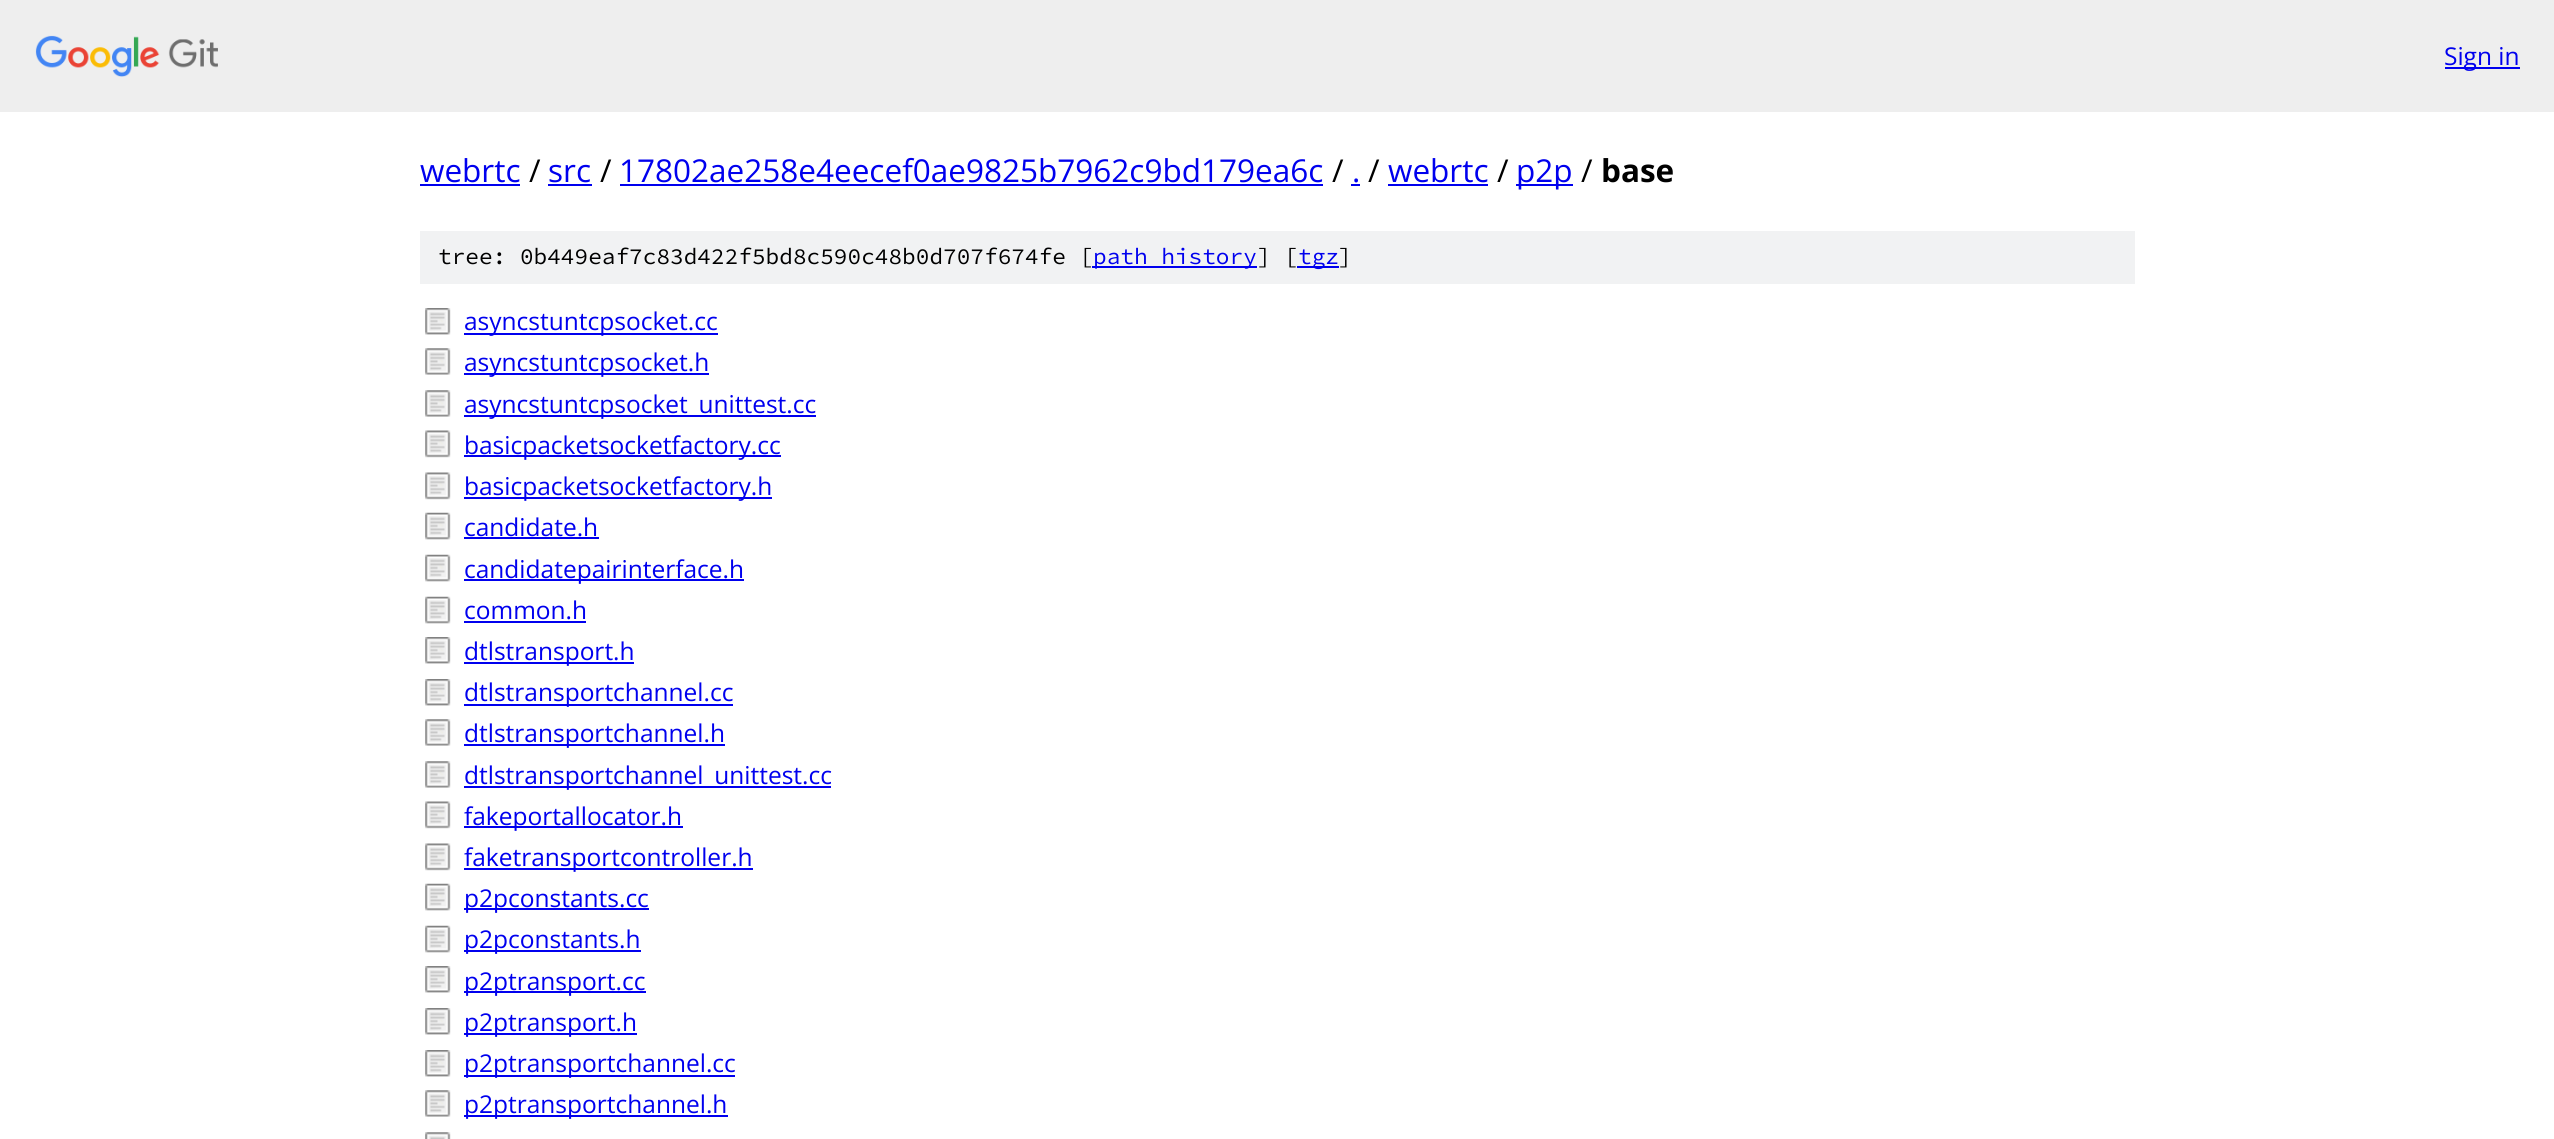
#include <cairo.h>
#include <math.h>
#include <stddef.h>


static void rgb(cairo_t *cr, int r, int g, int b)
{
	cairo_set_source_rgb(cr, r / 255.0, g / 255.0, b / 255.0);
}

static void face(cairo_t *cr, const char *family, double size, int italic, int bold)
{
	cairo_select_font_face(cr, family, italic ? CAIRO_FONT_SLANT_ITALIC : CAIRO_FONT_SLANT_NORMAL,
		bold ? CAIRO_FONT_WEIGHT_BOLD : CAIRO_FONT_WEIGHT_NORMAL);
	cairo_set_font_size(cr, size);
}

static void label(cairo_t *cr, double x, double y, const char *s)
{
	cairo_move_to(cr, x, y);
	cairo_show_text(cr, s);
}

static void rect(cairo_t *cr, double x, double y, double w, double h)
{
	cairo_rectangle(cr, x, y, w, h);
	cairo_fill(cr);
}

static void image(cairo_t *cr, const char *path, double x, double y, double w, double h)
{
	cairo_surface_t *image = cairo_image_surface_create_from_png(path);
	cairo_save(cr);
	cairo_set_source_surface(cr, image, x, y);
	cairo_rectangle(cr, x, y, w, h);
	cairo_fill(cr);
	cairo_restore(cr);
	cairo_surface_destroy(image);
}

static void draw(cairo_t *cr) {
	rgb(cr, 255, 255, 255);
	cairo_paint(cr);
	rgb(cr, 238, 238, 238);
	rect(cr, 0, 0, 2554, 112);
	image(cr, "image0.png", 35, 35, 183, 42);
	rgb(cr, 0, 0, 238);
	rect(cr, 2445, 67, 75, 2);
	face(cr, "Open Sans", 24.5, 0, 0);
	label(cr, 2444, 65, "Sign in");
	face(cr, "Open Sans", 31.5, 0, 0);
	label(cr, 420, 182, "webrtc");
	rect(cr, 420, 184, 100, 2);
	rgb(cr, 0, 0, 0);
	label(cr, 529, 182, "/");
	rgb(cr, 0, 0, 238);
	label(cr, 548, 182, "src");
	rect(cr, 548, 184, 44, 2);
	rgb(cr, 0, 0, 0);
	label(cr, 600, 182, "/");
	rgb(cr, 0, 0, 238);
	label(cr, 619, 182, "17802ae258e4eecef0ae9825b7962c9bd179ea6c");
	rect(cr, 620, 184, 703, 2);
	rgb(cr, 0, 0, 0);
	label(cr, 1332, 182, "/");
	rgb(cr, 0, 0, 238);
	label(cr, 1352, 182, ".");
	rect(cr, 1351, 184, 9, 2);
	rgb(cr, 0, 0, 0);
	label(cr, 1368, 182, "/");
	rgb(cr, 0, 0, 238);
	label(cr, 1388, 182, "webrtc");
	rect(cr, 1388, 184, 100, 2);
	rgb(cr, 0, 0, 0);
	label(cr, 1497, 182, "/");
	rgb(cr, 0, 0, 238);
	rect(cr, 1516, 184, 57, 2);
	label(cr, 1516, 182, "p2p");
	rgb(cr, 0, 0, 0);
	label(cr, 1581, 182, "/");
	face(cr, "Open Sans", 31.5, 0, 1);
	label(cr, 1601, 182, "base");
	rgb(cr, 241, 242, 243);
	rect(cr, 420, 231, 1715, 53);
	face(cr, "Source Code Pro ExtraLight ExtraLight", 22.75, 0, 0);
	rgb(cr, 0, 0, 0);
	label(cr, 438, 264, "tree: 0b449eaf7c83d422f5bd8c590c48b0d707f674fe [");
	rgb(cr, 0, 0, 238);
	rect(cr, 1092, 266, 165, 2);
	label(cr, 1093, 264, "path history");
	rgb(cr, 0, 0, 0);
	label(cr, 1257, 264, "] [");
	rgb(cr, 0, 0, 238);
	rect(cr, 1297, 266, 42, 2);
	label(cr, 1298, 264, "tgz");
	rgb(cr, 0, 0, 0);
	label(cr, 1338, 264, "]");
	image(cr, "image1.png", 425, 308, 26, 27);
	rgb(cr, 0, 0, 238);
	rect(cr, 464, 333, 254, 2);
	face(cr, "Open Sans", 24.5, 0, 0);
	label(cr, 464, 330, "asyncstuntcpsocket.cc");
	image(cr, "image2.png", 425, 348, 26, 27);
	rect(cr, 464, 373, 245, 2);
	label(cr, 464, 371, "asyncstuntcpsocket.h");
	image(cr, "image2.png", 425, 390, 26, 27);
	rect(cr, 464, 415, 352, 2);
	label(cr, 464, 413, "asyncstuntcpsocket_unittest.cc");
	image(cr, "image3.png", 425, 430, 26, 28);
	rect(cr, 464, 455, 317, 2);
	label(cr, 464, 454, "basicpacketsocketfactory.cc");
	image(cr, "image3.png", 425, 472, 26, 28);
	rect(cr, 464, 497, 308, 2);
	label(cr, 464, 495, "basicpacketsocketfactory.h");
	image(cr, "image4.png", 425, 512, 26, 28);
	label(cr, 464, 536, "candidate.h");
	rect(cr, 464, 537, 135, 2);
	image(cr, "image4.png", 425, 554, 26, 28);
	rect(cr, 464, 579, 280, 2);
	label(cr, 464, 578, "candidatepairinterface.h");
	image(cr, "image4.png", 425, 596, 26, 28);
	label(cr, 464, 619, "common.h");
	rect(cr, 464, 621, 122, 2);
	image(cr, "image1.png", 425, 637, 26, 27);
	rect(cr, 464, 662, 170, 2);
	label(cr, 464, 660, "dtlstransport.h");
	image(cr, "image1.png", 425, 679, 26, 27);
	rect(cr, 464, 704, 269, 2);
	label(cr, 464, 701, "dtlstransportchannel.cc");
	image(cr, "image2.png", 425, 719, 26, 27);
	rect(cr, 464, 744, 261, 2);
	label(cr, 464, 742, "dtlstransportchannel.h");
	image(cr, "image2.png", 425, 761, 26, 27);
	rect(cr, 464, 786, 367, 2);
	label(cr, 464, 784, "dtlstransportchannel_unittest.cc");
	image(cr, "image3.png", 425, 801, 26, 28);
	rect(cr, 464, 826, 219, 2);
	label(cr, 464, 825, "fakeportallocator.h");
	image(cr, "image3.png", 425, 843, 26, 28);
	rect(cr, 464, 868, 289, 2);
	label(cr, 464, 866, "faketransportcontroller.h");
	image(cr, "image4.png", 425, 883, 26, 28);
	rect(cr, 464, 908, 185, 2);
	label(cr, 464, 907, "p2pconstants.cc");
	image(cr, "image4.png", 425, 925, 26, 28);
	rect(cr, 464, 950, 177, 2);
	label(cr, 464, 948, "p2pconstants.h");
	image(cr, "image1.png", 425, 966, 26, 27);
	rect(cr, 464, 991, 182, 2);
	label(cr, 464, 990, "p2ptransport.cc");
	image(cr, "image1.png", 425, 1008, 26, 27);
	rect(cr, 464, 1033, 173, 2);
	label(cr, 464, 1031, "p2ptransport.h");
	image(cr, "image1.png", 425, 1050, 26, 27);
	rect(cr, 464, 1075, 271, 2);
	label(cr, 464, 1072, "p2ptransportchannel.cc");
	image(cr, "image2.png", 425, 1090, 26, 27);
	rect(cr, 464, 1115, 264, 2);
	label(cr, 464, 1113, "p2ptransportchannel.h");
	image(cr, "image5.png", 425, 1132, 26, 7);
}

int main(void) {
	cairo_surface_t *surface = cairo_image_surface_create(CAIRO_FORMAT_RGB24, 2554, 1139);
	cairo_t *cr = cairo_create(surface);
	cairo_font_options_t *options = cairo_font_options_create();
	cairo_font_options_set_hint_metrics(options, CAIRO_HINT_METRICS_OFF);
	cairo_font_options_set_hint_style(options, CAIRO_HINT_STYLE_NONE);
	cairo_set_font_options(cr, options);
	cairo_set_miter_limit(cr, 4);
	draw(cr);
	cairo_surface_write_to_png(surface, "render.png");
	cairo_font_options_destroy(options);
	cairo_destroy(cr);
	cairo_surface_destroy(surface);
	return 0;
}
